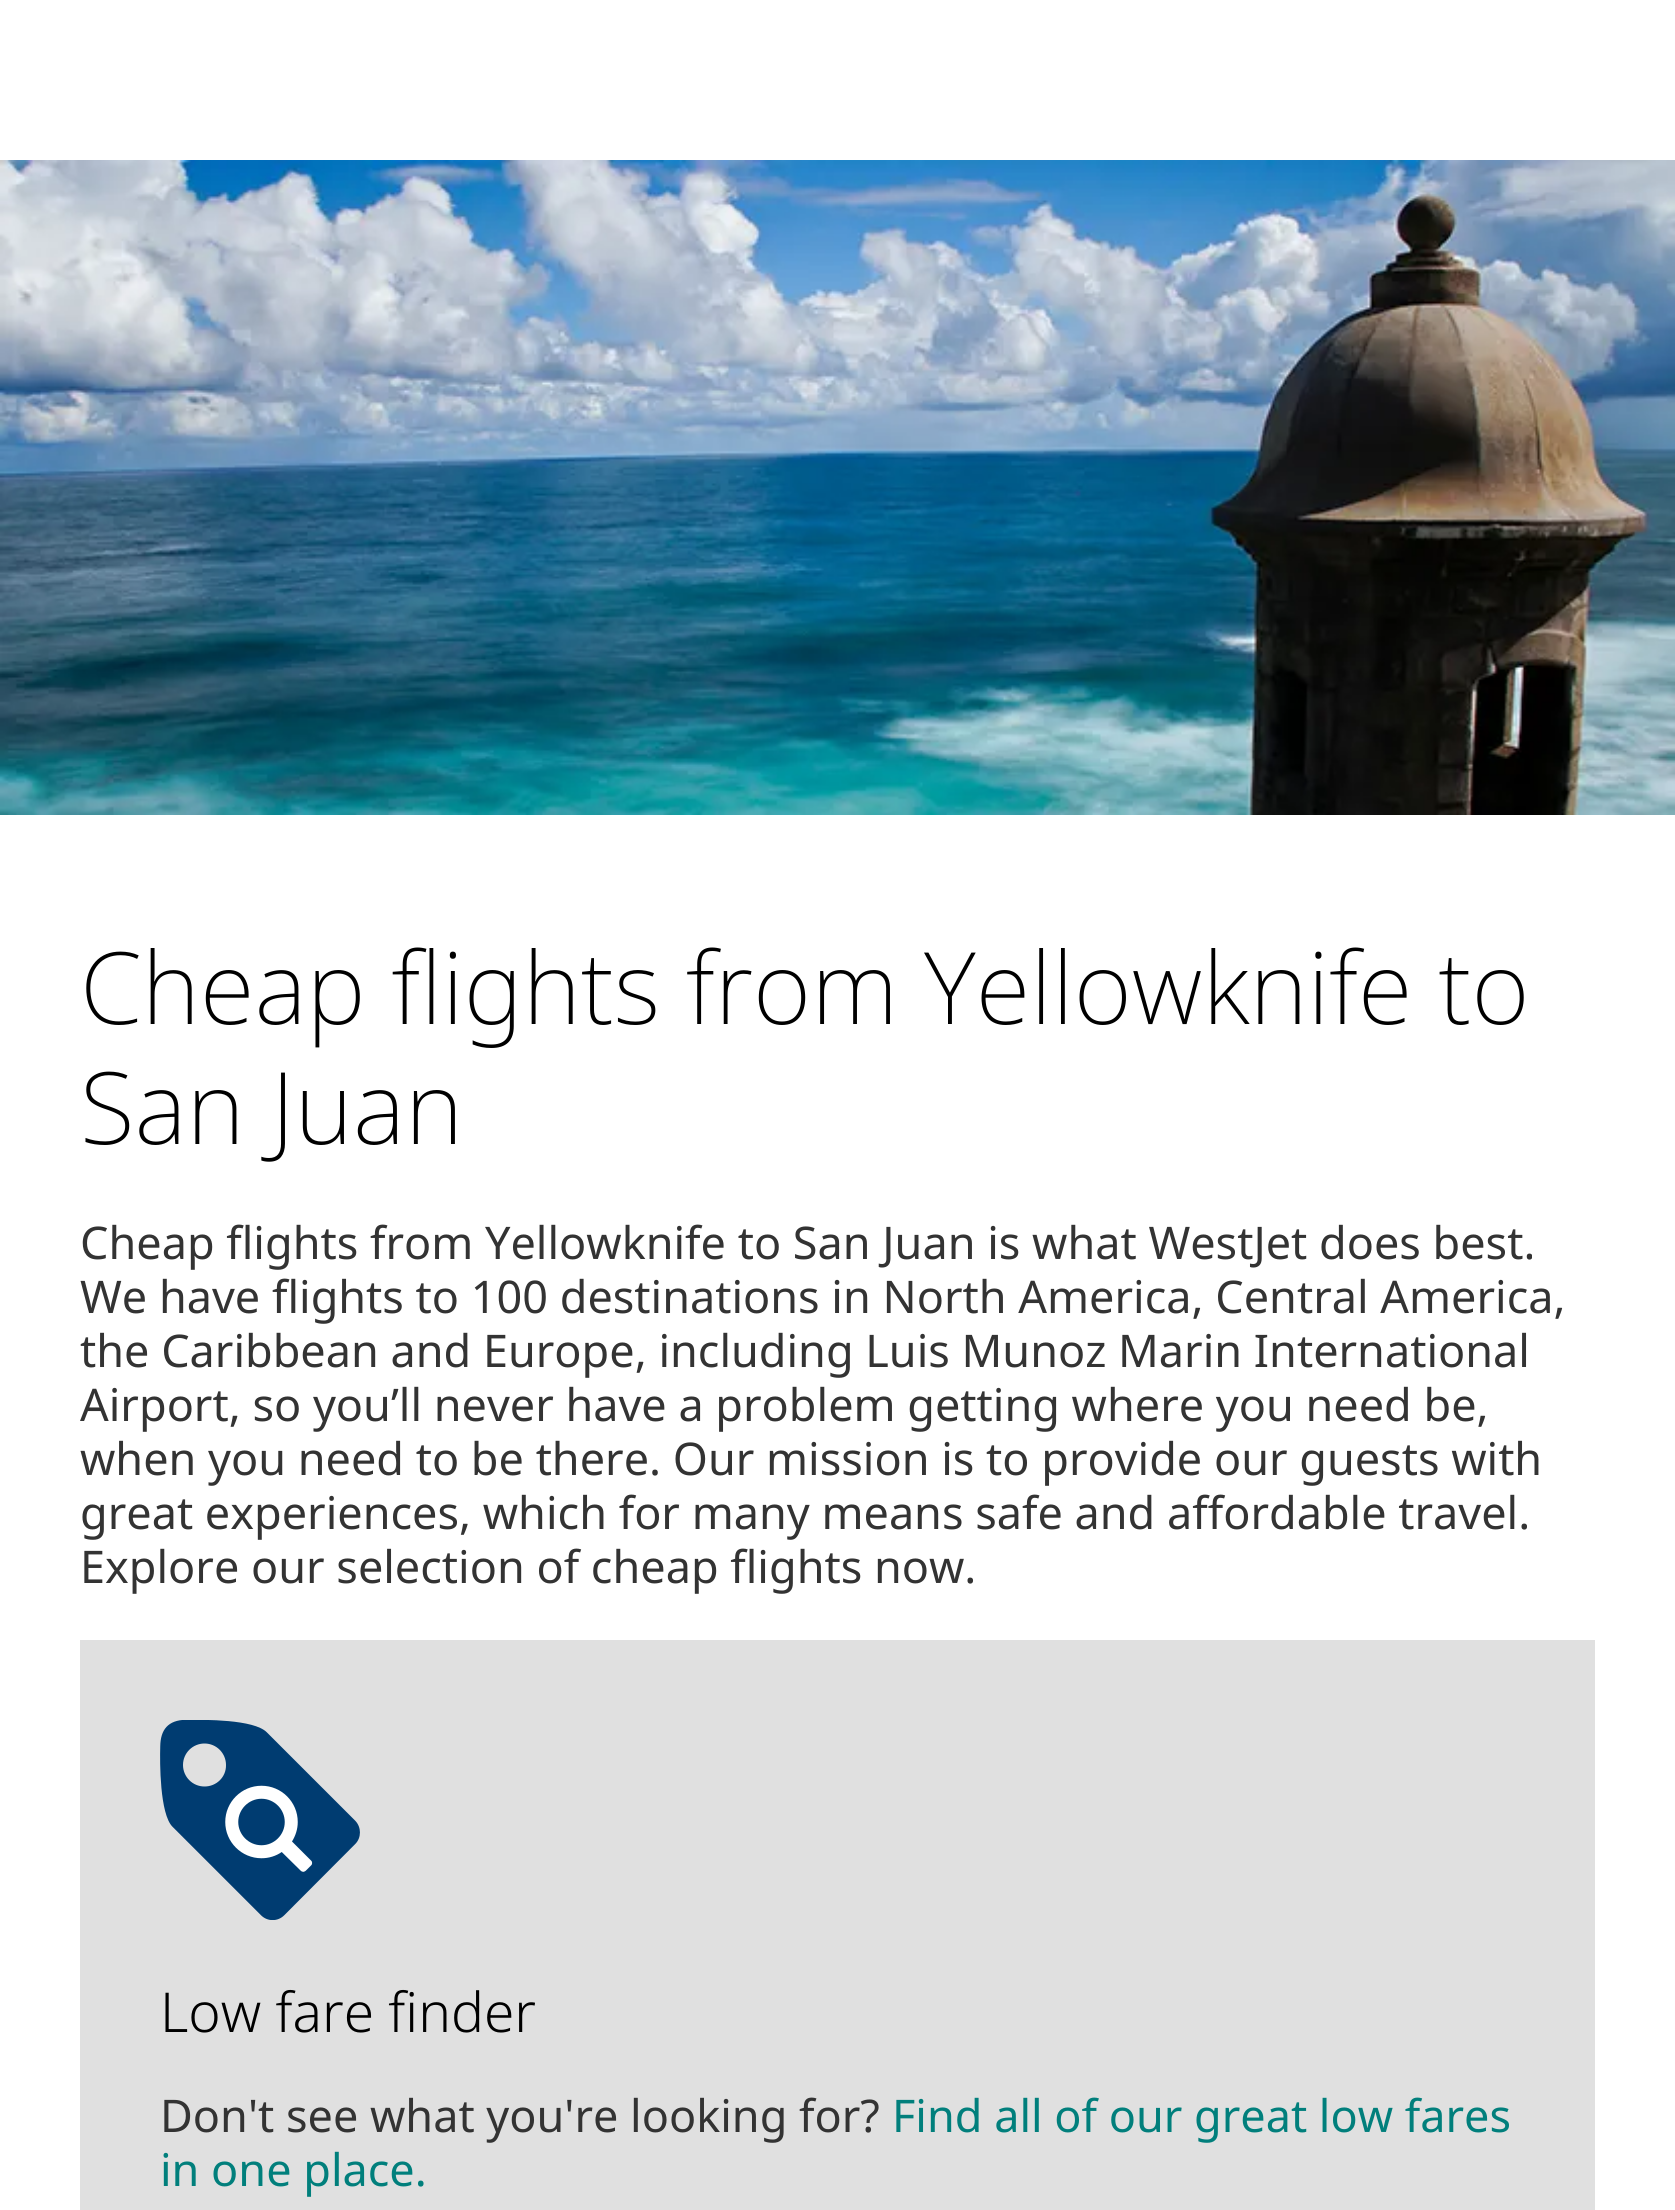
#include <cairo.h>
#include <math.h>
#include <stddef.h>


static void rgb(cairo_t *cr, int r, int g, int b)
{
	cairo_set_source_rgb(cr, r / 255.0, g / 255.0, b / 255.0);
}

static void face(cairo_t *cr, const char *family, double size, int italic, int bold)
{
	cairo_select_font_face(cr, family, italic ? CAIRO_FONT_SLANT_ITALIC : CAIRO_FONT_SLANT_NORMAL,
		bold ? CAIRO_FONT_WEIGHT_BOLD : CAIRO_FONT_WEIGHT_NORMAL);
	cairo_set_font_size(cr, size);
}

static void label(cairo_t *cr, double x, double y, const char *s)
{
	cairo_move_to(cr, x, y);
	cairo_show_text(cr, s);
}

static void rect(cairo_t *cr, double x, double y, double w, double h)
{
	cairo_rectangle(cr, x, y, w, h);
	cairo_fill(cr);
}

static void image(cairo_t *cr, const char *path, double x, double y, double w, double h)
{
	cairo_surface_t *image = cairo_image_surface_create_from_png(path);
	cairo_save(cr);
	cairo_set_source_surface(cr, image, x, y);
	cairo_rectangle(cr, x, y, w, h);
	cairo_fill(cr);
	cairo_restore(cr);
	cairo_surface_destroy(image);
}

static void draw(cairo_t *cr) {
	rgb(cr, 255, 255, 255);
	cairo_paint(cr);
	image(cr, "image0.png", 0, 160, 1675, 655);
	face(cr, "Noto Sans ExtraLight", 100, 0, 0);
	rgb(cr, 0, 0, 0);
	label(cr, 80, 1024, "Cheap flights from Yellowknife to");
	label(cr, 80, 1144, "San Juan");
	face(cr, "Noto Sans", 45, 0, 0);
	rgb(cr, 51, 51, 51);
	label(cr, 80, 1259, "Cheap flights from Yellowknife to San Juan is what WestJet does best.");
	label(cr, 80, 1313, "We have flights to 100 destinations in North America, Central America,");
	label(cr, 80, 1367, "the Caribbean and Europe, including Luis Munoz Marin International");
	label(cr, 80, 1421, "Airport, so you’ll never have a problem getting where you need be,");
	label(cr, 80, 1475, "when you need to be there. Our mission is to provide our guests with");
	label(cr, 80, 1529, "great experiences, which for many means safe and affordable travel.");
	label(cr, 80, 1583, "Explore our selection of cheap flights now.");
	rgb(cr, 224, 224, 224);
	rect(cr, 80, 1640, 1515, 570);
	image(cr, "image1.png", 160, 1720, 200, 200);
	face(cr, "Noto Sans Light", 55, 0, 0);
	rgb(cr, 0, 0, 0);
	label(cr, 160, 2032, "Low fare finder");
	face(cr, "Noto Sans", 45, 0, 0);
	rgb(cr, 51, 51, 51);
	label(cr, 160, 2132, "Don't see what you're looking for?");
	rgb(cr, 1, 127, 124);
	label(cr, 892, 2132, "Find all of our great low fares");
	label(cr, 160, 2186, "in one place.");
}

int main(void) {
	cairo_surface_t *surface = cairo_image_surface_create(CAIRO_FORMAT_RGB24, 1675, 2210);
	cairo_t *cr = cairo_create(surface);
	cairo_font_options_t *options = cairo_font_options_create();
	cairo_font_options_set_hint_metrics(options, CAIRO_HINT_METRICS_OFF);
	cairo_font_options_set_hint_style(options, CAIRO_HINT_STYLE_NONE);
	cairo_set_font_options(cr, options);
	cairo_set_miter_limit(cr, 4);
	draw(cr);
	cairo_surface_write_to_png(surface, "render.png");
	cairo_font_options_destroy(options);
	cairo_destroy(cr);
	cairo_surface_destroy(surface);
	return 0;
}
